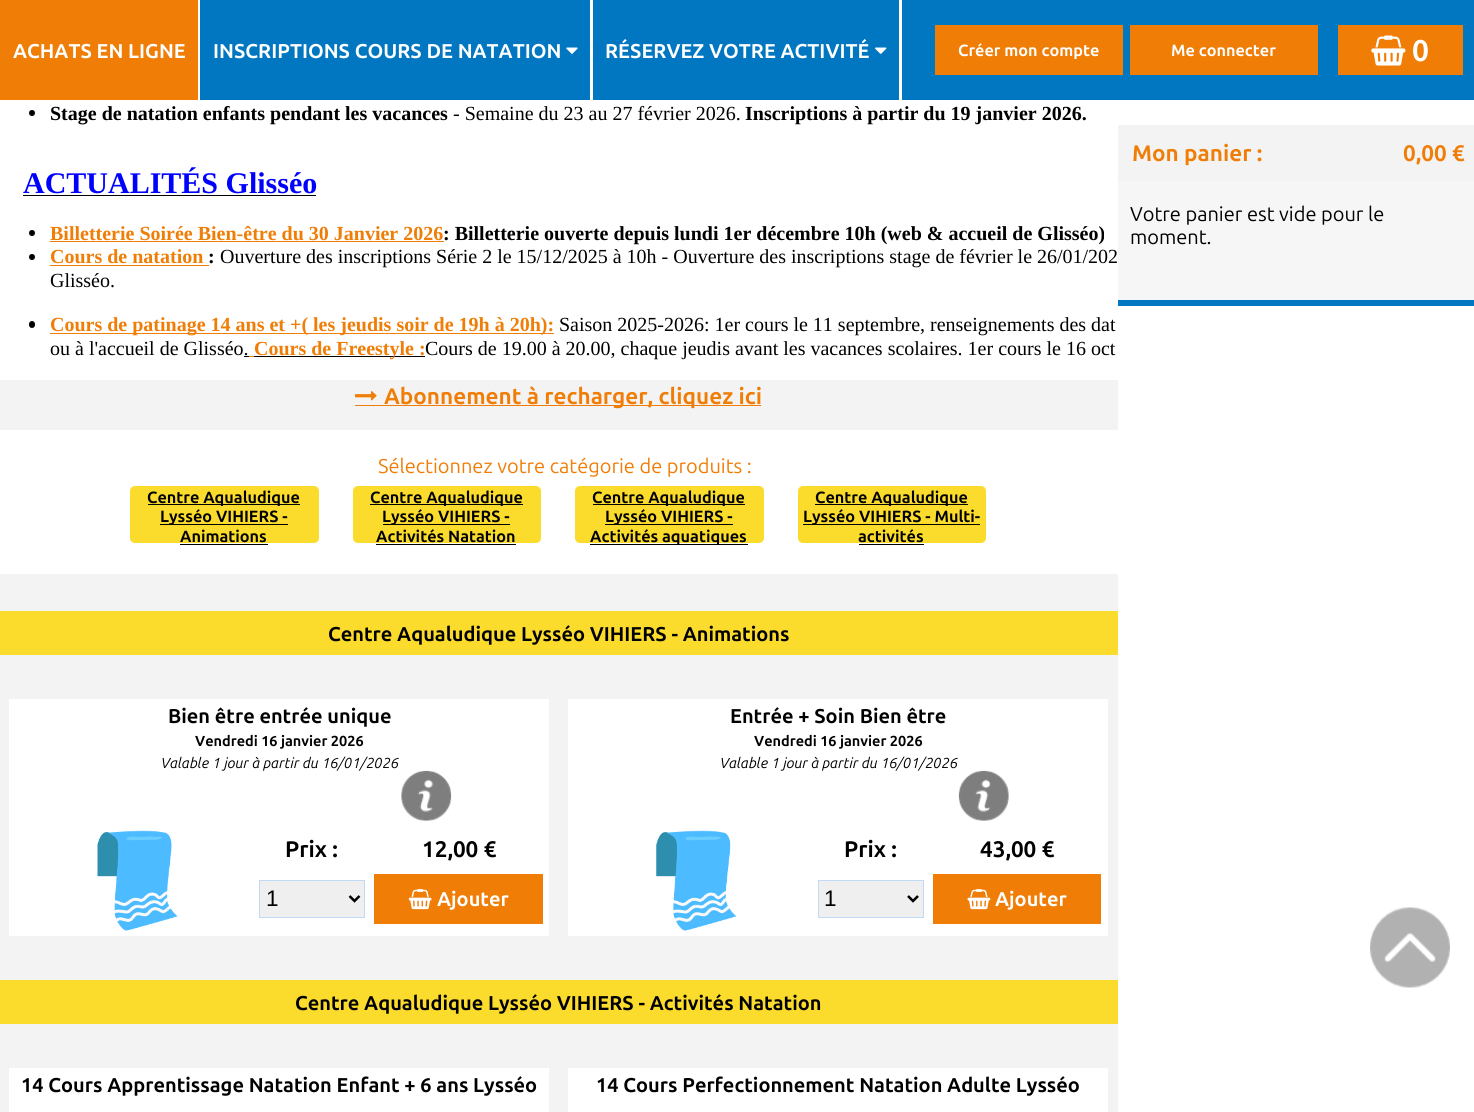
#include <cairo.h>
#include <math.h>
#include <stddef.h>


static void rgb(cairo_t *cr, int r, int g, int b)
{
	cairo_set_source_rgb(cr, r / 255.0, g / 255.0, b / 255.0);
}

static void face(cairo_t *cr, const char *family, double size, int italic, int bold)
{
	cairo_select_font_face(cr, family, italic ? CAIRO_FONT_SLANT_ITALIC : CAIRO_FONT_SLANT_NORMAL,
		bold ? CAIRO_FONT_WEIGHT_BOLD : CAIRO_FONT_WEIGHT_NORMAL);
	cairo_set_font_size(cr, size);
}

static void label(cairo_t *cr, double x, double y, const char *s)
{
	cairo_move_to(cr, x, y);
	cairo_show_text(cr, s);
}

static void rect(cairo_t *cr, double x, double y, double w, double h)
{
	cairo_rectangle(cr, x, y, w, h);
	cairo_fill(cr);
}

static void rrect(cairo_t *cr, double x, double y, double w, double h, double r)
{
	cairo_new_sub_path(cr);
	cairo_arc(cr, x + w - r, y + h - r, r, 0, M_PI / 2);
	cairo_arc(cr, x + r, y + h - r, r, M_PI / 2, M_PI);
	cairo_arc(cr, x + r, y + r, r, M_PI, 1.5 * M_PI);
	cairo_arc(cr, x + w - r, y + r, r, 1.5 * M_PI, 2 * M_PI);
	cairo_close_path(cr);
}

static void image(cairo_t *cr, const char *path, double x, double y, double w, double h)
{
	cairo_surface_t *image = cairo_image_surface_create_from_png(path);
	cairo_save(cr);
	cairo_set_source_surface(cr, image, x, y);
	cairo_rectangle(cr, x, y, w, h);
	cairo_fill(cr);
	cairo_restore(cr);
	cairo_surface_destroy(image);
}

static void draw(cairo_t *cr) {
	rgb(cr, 255, 255, 255);
	cairo_paint(cr);
	rgb(cr, 1, 119, 193);
	rect(cr, 593, 0, 881, 100);
	rgb(cr, 239, 125, 6);
	rect(cr, 0, 0, 198, 100);
	face(cr, "Ubuntu", 20, 0, 1);
	rgb(cr, 255, 255, 255);
	label(cr, 13, 58, "ACHATS EN LIGNE");
	rgb(cr, 1, 119, 193);
	rect(cr, 200, 0, 390, 100);
	rgb(cr, 255, 255, 255);
	label(cr, 213, 58, "INSCRIPTIONS COURS DE NATATION");
	image(cr, "image0.png", 566, 47, 12, 7);
	rect(cr, 899, 0, 3, 100);
	label(cr, 605, 58, "RÉSERVEZ VOTRE ACTIVITÉ");
	image(cr, "image1.png", 875, 47, 12, 7);
	rgb(cr, 239, 125, 6);
	rect(cr, 935, 25, 188, 50);
	face(cr, "Ubuntu", 16.25, 0, 1);
	rgb(cr, 255, 255, 255);
	label(cr, 958, 56, "Créer mon compte");
	rgb(cr, 239, 125, 6);
	rect(cr, 1130, 25, 188, 50);
	rgb(cr, 255, 255, 255);
	label(cr, 1171, 56, "Me connecter");
	rgb(cr, 239, 125, 6);
	rect(cr, 1338, 25, 125, 50);
	image(cr, "image2.png", 1371, 35, 35, 31);
	face(cr, "Ubuntu", 30, 0, 1);
	rgb(cr, 255, 255, 255);
	label(cr, 1412, 61, "0");
	rgb(cr, 0, 0, 0);
	cairo_new_path(cr);
	cairo_arc(cr, 32, 113, 3, 0, 2 * M_PI);
	cairo_fill(cr);
	face(cr, "Liberation Serif", 20, 0, 1);
	label(cr, 50, 120, "Stage de natation enfants pendant les vacances");
	face(cr, "Liberation Serif", 20, 0, 0);
	label(cr, 453, 120, "- Semaine du 23 au 27 février 2026.");
	face(cr, "Liberation Serif", 20, 0, 1);
	label(cr, 745, 120, "Inscriptions à partir du 19 janvier 2026.");
	face(cr, "Liberation Serif", 30, 0, 1);
	rgb(cr, 0, 0, 255);
	label(cr, 23, 193, "ACTUALITÉS Glisséo");
	rgb(cr, 0, 0, 0);
	rect(cr, 23, 195, 293, 1);
	cairo_new_path(cr);
	cairo_arc(cr, 32, 233, 3, 0, 2 * M_PI);
	cairo_fill(cr);
	face(cr, "Liberation Serif", 20, 0, 1);
	rgb(cr, 239, 125, 6);
	label(cr, 50, 240, "Billetterie Soirée Bien-être du 30 Janvier 2026");
	rect(cr, 50, 241, 394, 1);
	rgb(cr, 0, 0, 0);
	label(cr, 443, 240, ": Billetterie ouverte depuis lundi 1er décembre 10h (web & accueil de Glisséo)");
	cairo_new_path(cr);
	cairo_arc(cr, 32, 257, 3, 0, 2 * M_PI);
	cairo_fill(cr);
	rgb(cr, 239, 125, 6);
	label(cr, 50, 263, "Cours de natation");
	rgb(cr, 0, 0, 0);
	label(cr, 208, 263, ":");
	rgb(cr, 239, 125, 6);
	rect(cr, 50, 265, 159, 1);
	face(cr, "Liberation Serif", 20, 0, 0);
	rgb(cr, 0, 0, 0);
	label(cr, 220, 263, "Ouverture des inscriptions Série 2 le 15/12/2025 à 10h - Ouverture des inscriptions stage de février le 26/01/202");
	label(cr, 50, 287, "Glisséo.");
	rrect(cr, 29, 321, 6, 7, 3);
	cairo_fill(cr);
	rgb(cr, 239, 125, 6);
	rect(cr, 50, 333, 504, 1);
	face(cr, "Liberation Serif", 20, 0, 1);
	label(cr, 50, 331, "Cours de patinage 14 ans et +( les jeudis soir de 19h à 20h):");
	face(cr, "Liberation Serif", 20, 0, 0);
	rgb(cr, 0, 0, 0);
	label(cr, 559, 331, "Saison 2025-2026: 1er cours le 11 septembre, renseignements des dat");
	label(cr, 50, 355, "ou à l'accueil de Glisséo.");
	rect(cr, 244, 356, 5, 1);
	rect(cr, 254, 356, 171, 1);
	face(cr, "Liberation Serif", 20, 0, 1);
	rgb(cr, 239, 125, 6);
	label(cr, 254, 355, "Cours de Freestyle :");
	rect(cr, 249, 356, 5, 1);
	face(cr, "Liberation Serif", 20, 0, 0);
	rgb(cr, 0, 0, 0);
	label(cr, 425, 355, "Cours de 19.00 à 20.00, chaque jeudis avant les vacances scolaires. 1er cours le 16 oct");
	rgb(cr, 243, 243, 243);
	rect(cr, 1118, 125, 356, 56);
	face(cr, "Ubuntu", 22.5, 0, 1);
	rgb(cr, 239, 125, 6);
	label(cr, 1132, 161, "Mon panier :");
	label(cr, 1403, 161, "0,00 €");
	rgb(cr, 246, 246, 246);
	rect(cr, 1118, 181, 356, 119);
	face(cr, "Ubuntu", 20, 0, 0);
	rgb(cr, 0, 0, 0);
	label(cr, 1130, 221, "Votre panier est vide pour le");
	label(cr, 1130, 244, "moment.");
	rgb(cr, 1, 119, 193);
	rect(cr, 1118, 300, 356, 6);
	rgb(cr, 243, 243, 243);
	rect(cr, 0, 380, 1118, 50);
	image(cr, "image3.png", 355, 391, 22, 10);
	rgb(cr, 239, 125, 6);
	rect(cr, 355, 405, 406, 1);
	face(cr, "Ubuntu", 22.5, 0, 1);
	label(cr, 384, 404, "Abonnement à recharger, cliquez ici");
	face(cr, "Ubuntu", 20, 0, 0);
	label(cr, 378, 473, "Sélectionnez votre catégorie de produits :");
	rgb(cr, 251, 220, 44);
	rrect(cr, 130, 486, 189, 57, 5);
	cairo_fill(cr);
	rgb(cr, 0, 0, 0);
	rect(cr, 148, 504, 152, 1);
	face(cr, "Ubuntu", 16.25, 0, 1);
	label(cr, 147, 503, "Centre Aqualudique");
	rect(cr, 160, 524, 128, 1);
	label(cr, 160, 522, "Lysséo VIHIERS -");
	label(cr, 180, 542, "Animations");
	rect(cr, 180, 544, 88, 1);
	rgb(cr, 251, 220, 44);
	rrect(cr, 353, 486, 188, 57, 5);
	cairo_fill(cr);
	rgb(cr, 0, 0, 0);
	rect(cr, 370, 504, 153, 1);
	label(cr, 370, 503, "Centre Aqualudique");
	rect(cr, 383, 524, 127, 1);
	label(cr, 382, 522, "Lysséo VIHIERS -");
	label(cr, 376, 542, "Activités Natation");
	rect(cr, 376, 544, 140, 1);
	rgb(cr, 251, 220, 44);
	rrect(cr, 575, 486, 189, 57, 5);
	cairo_fill(cr);
	rgb(cr, 0, 0, 0);
	rect(cr, 593, 504, 152, 1);
	label(cr, 592, 503, "Centre Aqualudique");
	rect(cr, 605, 524, 128, 1);
	label(cr, 605, 522, "Lysséo VIHIERS -");
	rect(cr, 590, 544, 158, 1);
	label(cr, 590, 542, "Activités aquatiques");
	rgb(cr, 251, 220, 44);
	rrect(cr, 798, 486, 188, 57, 5);
	cairo_fill(cr);
	rgb(cr, 0, 0, 0);
	rect(cr, 815, 504, 153, 1);
	label(cr, 815, 503, "Centre Aqualudique");
	rect(cr, 803, 524, 177, 1);
	label(cr, 803, 522, "Lysséo VIHIERS - Multi-");
	label(cr, 858, 542, "activités");
	rect(cr, 859, 544, 65, 1);
	rgb(cr, 243, 243, 243);
	rect(cr, 0, 574, 1118, 37);
	rect(cr, 0, 655, 1118, 457);
	rgb(cr, 251, 220, 44);
	rect(cr, 0, 611, 1118, 44);
	face(cr, "Ubuntu", 20, 0, 1);
	rgb(cr, 0, 0, 0);
	label(cr, 328, 641, "Centre Aqualudique Lysséo VIHIERS - Animations");
	rgb(cr, 255, 255, 255);
	rect(cr, 9, 699, 540, 237);
	rgb(cr, 0, 0, 0);
	label(cr, 168, 723, "Bien être entrée unique");
	face(cr, "Ubuntu", 14.5, 0, 1);
	label(cr, 195, 746, "Vendredi 16 janvier 2026");
	face(cr, "Ubuntu", 14.5, 1, 0);
	label(cr, 161, 768, "Valable 1 jour à partir du 16/01/2026");
	image(cr, "image4.png", 401, 770, 51, 51);
	image(cr, "image5.png", 97, 830, 81, 101);
	face(cr, "Ubuntu", 22.5, 0, 1);
	label(cr, 285, 857, "Prix :");
	label(cr, 422, 857, "12,00 €");
	rgb(cr, 239, 239, 239);
	cairo_rectangle(cr, 259.5, 880.5, 105, 37);
	cairo_fill_preserve(cr);
	rgb(cr, 193, 219, 247);
	cairo_set_line_width(cr, 1);
	cairo_stroke(cr);
	cairo_new_path(cr);
	cairo_move_to(cr, 349.5, 896);
	cairo_line_to(cr, 354.5, 901);
	cairo_line_to(cr, 359.5, 896);
	rgb(cr, 0, 0, 0);
	cairo_set_line_width(cr, 2.5);
	cairo_stroke(cr);
	face(cr, "Liberation Sans", 22.5, 0, 0);
	label(cr, 266, 906, "1");
	rgb(cr, 239, 125, 6);
	rect(cr, 374, 874, 169, 50);
	image(cr, "image6.png", 408, 889, 24, 21);
	face(cr, "Ubuntu", 20, 0, 1);
	rgb(cr, 255, 255, 255);
	label(cr, 437, 906, "Ajouter");
	rect(cr, 568, 699, 540, 237);
	rgb(cr, 0, 0, 0);
	label(cr, 730, 723, "Entrée + Soin Bien être");
	face(cr, "Ubuntu", 14.5, 0, 1);
	label(cr, 754, 746, "Vendredi 16 janvier 2026");
	face(cr, "Ubuntu", 14.5, 1, 0);
	label(cr, 720, 768, "Valable 1 jour à partir du 16/01/2026");
	image(cr, "image7.png", 958, 770, 51, 51);
	image(cr, "image8.png", 656, 830, 81, 101);
	face(cr, "Ubuntu", 22.5, 0, 1);
	label(cr, 844, 857, "Prix :");
	label(cr, 980, 857, "43,00 €");
	rgb(cr, 239, 239, 239);
	cairo_rectangle(cr, 818.5, 880.5, 105, 37);
	cairo_fill_preserve(cr);
	rgb(cr, 193, 219, 247);
	cairo_set_line_width(cr, 1);
	cairo_stroke(cr);
	cairo_new_path(cr);
	cairo_move_to(cr, 908, 896);
	cairo_line_to(cr, 913, 901);
	cairo_line_to(cr, 918, 896);
	rgb(cr, 0, 0, 0);
	cairo_set_line_width(cr, 2.5);
	cairo_stroke(cr);
	face(cr, "Liberation Sans", 22.5, 0, 0);
	label(cr, 824, 906, "1");
	rgb(cr, 239, 125, 6);
	rect(cr, 933, 874, 168, 50);
	image(cr, "image9.png", 967, 889, 24, 21);
	face(cr, "Ubuntu", 20, 0, 1);
	rgb(cr, 255, 255, 255);
	label(cr, 995, 906, "Ajouter");
	rgb(cr, 251, 220, 44);
	rect(cr, 0, 980, 1118, 44);
	rgb(cr, 0, 0, 0);
	label(cr, 295, 1010, "Centre Aqualudique Lysséo VIHIERS - Activités Natation");
	rgb(cr, 255, 255, 255);
	rect(cr, 9, 1068, 540, 44);
	rgb(cr, 0, 0, 0);
	label(cr, 21, 1092, "14 Cours Apprentissage Natation Enfant + 6 ans Lysséo");
	rgb(cr, 255, 255, 255);
	rect(cr, 568, 1068, 540, 44);
	rgb(cr, 0, 0, 0);
	label(cr, 596, 1092, "14 Cours Perfectionnement Natation Adulte Lysséo");
	image(cr, "image10.png", 1370, 907, 80, 81);
}

int main(void) {
	cairo_surface_t *surface = cairo_image_surface_create(CAIRO_FORMAT_RGB24, 1474, 1112);
	cairo_t *cr = cairo_create(surface);
	cairo_font_options_t *options = cairo_font_options_create();
	cairo_font_options_set_hint_metrics(options, CAIRO_HINT_METRICS_OFF);
	cairo_font_options_set_hint_style(options, CAIRO_HINT_STYLE_NONE);
	cairo_set_font_options(cr, options);
	cairo_set_miter_limit(cr, 4);
	draw(cr);
	cairo_surface_write_to_png(surface, "render.png");
	cairo_font_options_destroy(options);
	cairo_destroy(cr);
	cairo_surface_destroy(surface);
	return 0;
}
